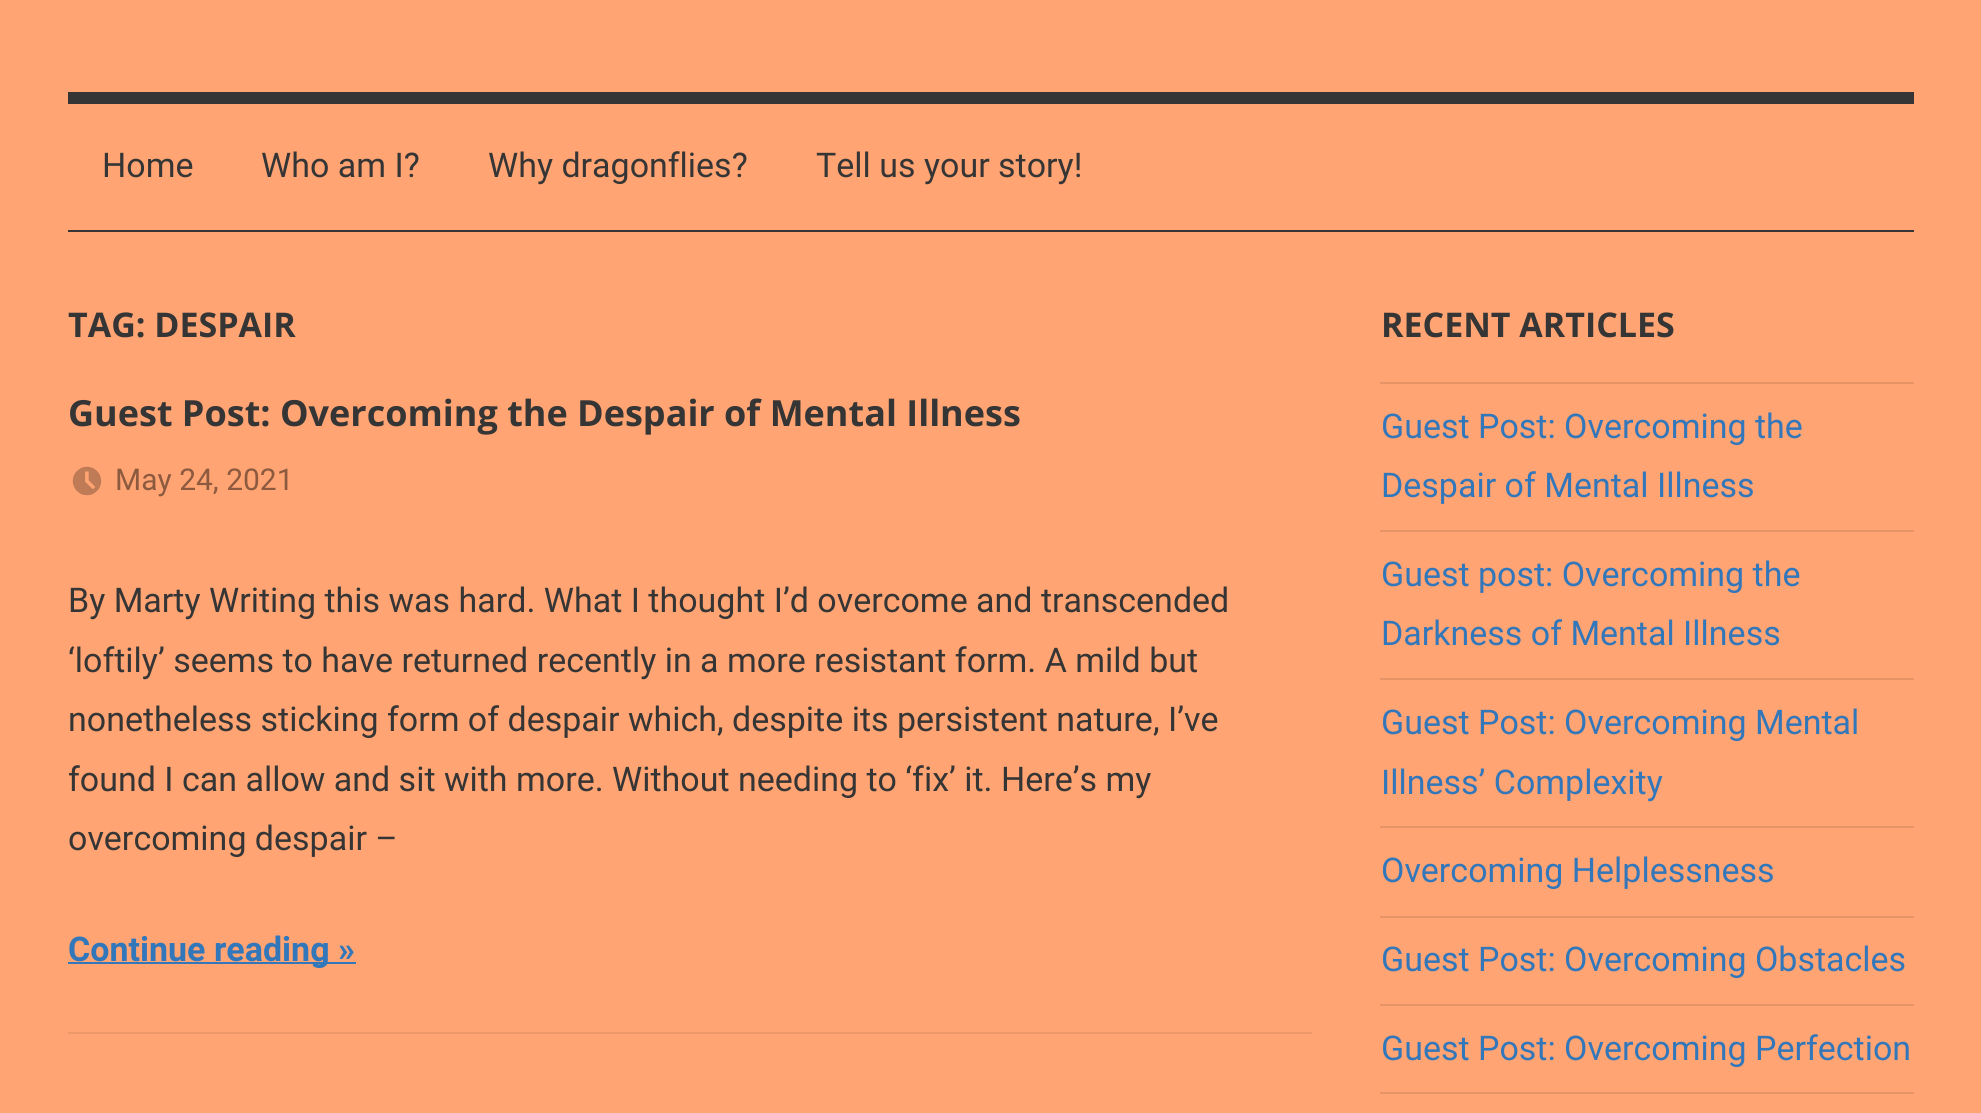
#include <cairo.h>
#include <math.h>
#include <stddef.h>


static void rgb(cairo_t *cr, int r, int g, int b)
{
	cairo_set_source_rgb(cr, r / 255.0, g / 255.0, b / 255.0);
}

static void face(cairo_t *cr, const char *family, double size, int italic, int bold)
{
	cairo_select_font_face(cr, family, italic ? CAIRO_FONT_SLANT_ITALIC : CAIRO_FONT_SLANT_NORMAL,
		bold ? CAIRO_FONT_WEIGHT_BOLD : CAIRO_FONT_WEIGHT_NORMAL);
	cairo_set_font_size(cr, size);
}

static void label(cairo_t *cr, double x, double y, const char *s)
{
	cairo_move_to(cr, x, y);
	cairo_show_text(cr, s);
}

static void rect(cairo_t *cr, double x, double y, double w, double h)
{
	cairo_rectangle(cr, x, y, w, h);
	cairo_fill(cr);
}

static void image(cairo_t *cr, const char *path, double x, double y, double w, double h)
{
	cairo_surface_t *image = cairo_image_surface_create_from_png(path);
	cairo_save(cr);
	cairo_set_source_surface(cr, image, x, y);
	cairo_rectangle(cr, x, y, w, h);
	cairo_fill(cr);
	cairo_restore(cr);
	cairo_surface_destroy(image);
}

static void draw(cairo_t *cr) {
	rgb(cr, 255, 164, 114);
	cairo_paint(cr);
	rgb(cr, 53, 53, 53);
	rect(cr, 68, 92, 1846, 12);
	rect(cr, 68, 230, 1846, 2);
	face(cr, "Roboto", 34, 0, 0);
	label(cr, 102, 177, "Home");
	label(cr, 261, 177, "Who am I?");
	label(cr, 488, 177, "Why dragonflies?");
	label(cr, 816, 177, "Tell us your story!");
	face(cr, "Open Sans", 34, 0, 1);
	label(cr, 68, 337, "TAG: DESPAIR");
	rgb(cr, 236, 152, 105);
	rect(cr, 68, 1032, 1244, 2);
	face(cr, "Open Sans", 36, 0, 1);
	rgb(cr, 53, 53, 53);
	label(cr, 68, 426, "Guest Post: Overcoming the Despair of Mental Illness");
	image(cr, "image0.png", 72, 466, 30, 30);
	face(cr, "Roboto", 30, 0, 0);
	rgb(cr, 140, 90, 63);
	label(cr, 115, 490, "May 24, 2021");
	face(cr, "Roboto", 34, 0, 0);
	rgb(cr, 53, 53, 53);
	label(cr, 68, 612, "By Marty Writing this was hard. What I thought I’d overcome and transcended");
	label(cr, 68, 672, "‘loftily’ seems to have returned recently in a more resistant form. A mild but");
	label(cr, 68, 731, "nonetheless sticking form of despair which, despite its persistent nature, I’ve");
	label(cr, 68, 791, "found I can allow and sit with more. Without needing to ‘fix’ it. Here’s my");
	label(cr, 68, 850, "overcoming despair –");
	rgb(cr, 51, 119, 187);
	rect(cr, 68, 962, 288, 2);
	face(cr, "Roboto", 34, 0, 1);
	label(cr, 68, 961, "Continue reading »");
	face(cr, "Open Sans", 34, 0, 1);
	rgb(cr, 53, 53, 53);
	label(cr, 1381, 337, "RECENT ARTICLES");
	rgb(cr, 230, 148, 103);
	rect(cr, 1380, 382, 534, 2);
	face(cr, "Roboto", 34, 0, 0);
	rgb(cr, 51, 119, 187);
	label(cr, 1381, 438, "Guest Post: Overcoming the");
	label(cr, 1381, 497, "Despair of Mental Illness");
	rgb(cr, 230, 148, 103);
	rect(cr, 1380, 530, 534, 2);
	rgb(cr, 51, 119, 187);
	label(cr, 1381, 586, "Guest post: Overcoming the");
	label(cr, 1381, 645, "Darkness of Mental Illness");
	rgb(cr, 230, 148, 103);
	rect(cr, 1380, 678, 534, 2);
	rgb(cr, 51, 119, 187);
	label(cr, 1381, 734, "Guest Post: Overcoming Mental");
	label(cr, 1381, 794, "Illness’ Complexity");
	rgb(cr, 230, 148, 103);
	rect(cr, 1380, 826, 534, 2);
	rgb(cr, 51, 119, 187);
	label(cr, 1381, 882, "Overcoming Helplessness");
	rgb(cr, 230, 148, 103);
	rect(cr, 1380, 916, 534, 2);
	rgb(cr, 51, 119, 187);
	label(cr, 1381, 971, "Guest Post: Overcoming Obstacles");
	rgb(cr, 230, 148, 103);
	rect(cr, 1380, 1004, 534, 2);
	rgb(cr, 51, 119, 187);
	label(cr, 1381, 1060, "Guest Post: Overcoming Perfection");
	rgb(cr, 230, 148, 103);
	rect(cr, 1380, 1092, 534, 2);
}

int main(void) {
	cairo_surface_t *surface = cairo_image_surface_create(CAIRO_FORMAT_RGB24, 1981, 1113);
	cairo_t *cr = cairo_create(surface);
	cairo_font_options_t *options = cairo_font_options_create();
	cairo_font_options_set_hint_metrics(options, CAIRO_HINT_METRICS_OFF);
	cairo_font_options_set_hint_style(options, CAIRO_HINT_STYLE_NONE);
	cairo_set_font_options(cr, options);
	cairo_set_miter_limit(cr, 4);
	draw(cr);
	cairo_surface_write_to_png(surface, "render.png");
	cairo_font_options_destroy(options);
	cairo_destroy(cr);
	cairo_surface_destroy(surface);
	return 0;
}
